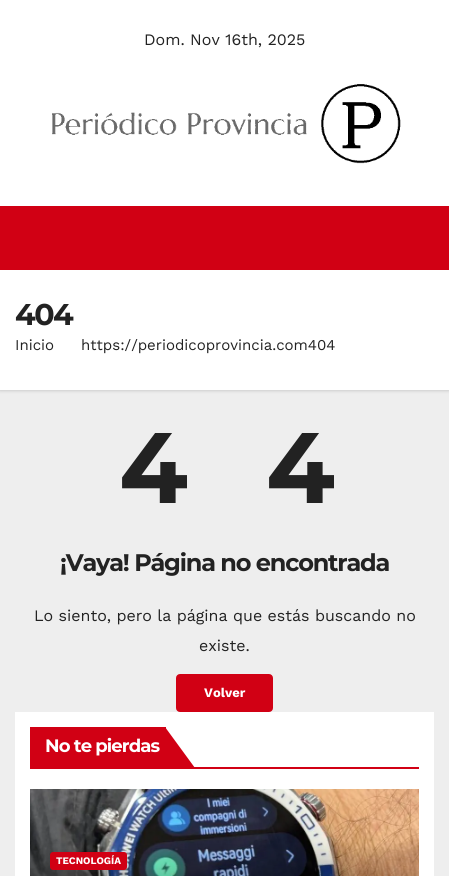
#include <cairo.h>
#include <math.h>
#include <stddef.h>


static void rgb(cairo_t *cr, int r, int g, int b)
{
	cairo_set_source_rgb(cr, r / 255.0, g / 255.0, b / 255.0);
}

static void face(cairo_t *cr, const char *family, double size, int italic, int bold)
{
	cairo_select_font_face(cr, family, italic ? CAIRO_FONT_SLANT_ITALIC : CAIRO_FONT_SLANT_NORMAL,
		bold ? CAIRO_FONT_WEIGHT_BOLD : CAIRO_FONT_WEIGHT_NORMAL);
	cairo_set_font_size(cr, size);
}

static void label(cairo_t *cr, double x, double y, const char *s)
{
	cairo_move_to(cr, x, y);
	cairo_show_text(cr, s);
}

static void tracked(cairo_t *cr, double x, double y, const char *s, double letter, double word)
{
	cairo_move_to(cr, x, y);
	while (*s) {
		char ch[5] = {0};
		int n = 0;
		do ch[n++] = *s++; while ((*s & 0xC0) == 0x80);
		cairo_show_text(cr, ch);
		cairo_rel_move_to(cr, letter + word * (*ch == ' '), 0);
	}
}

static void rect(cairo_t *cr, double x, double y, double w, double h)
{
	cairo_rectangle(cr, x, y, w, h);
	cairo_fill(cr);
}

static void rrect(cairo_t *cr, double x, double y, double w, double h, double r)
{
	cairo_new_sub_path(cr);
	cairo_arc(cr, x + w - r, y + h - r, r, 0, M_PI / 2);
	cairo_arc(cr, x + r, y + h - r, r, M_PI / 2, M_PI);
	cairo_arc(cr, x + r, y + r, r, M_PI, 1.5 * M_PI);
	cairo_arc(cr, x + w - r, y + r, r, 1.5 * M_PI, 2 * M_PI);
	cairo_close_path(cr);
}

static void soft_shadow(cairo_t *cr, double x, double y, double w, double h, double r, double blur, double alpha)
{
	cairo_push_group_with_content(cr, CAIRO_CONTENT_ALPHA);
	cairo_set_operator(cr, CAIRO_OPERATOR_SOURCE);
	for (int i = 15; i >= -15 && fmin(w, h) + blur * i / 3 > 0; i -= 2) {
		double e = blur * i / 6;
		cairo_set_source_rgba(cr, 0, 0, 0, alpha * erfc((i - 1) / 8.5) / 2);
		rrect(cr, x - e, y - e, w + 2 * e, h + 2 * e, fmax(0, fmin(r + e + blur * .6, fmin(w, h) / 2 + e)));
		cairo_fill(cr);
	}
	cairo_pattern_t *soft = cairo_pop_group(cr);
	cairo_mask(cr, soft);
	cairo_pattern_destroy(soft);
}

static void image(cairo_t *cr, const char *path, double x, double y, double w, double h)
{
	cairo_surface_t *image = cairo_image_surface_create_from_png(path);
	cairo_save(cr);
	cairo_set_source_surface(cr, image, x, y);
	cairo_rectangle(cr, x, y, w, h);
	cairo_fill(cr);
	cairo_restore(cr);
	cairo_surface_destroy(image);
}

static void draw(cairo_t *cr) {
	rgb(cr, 238, 238, 238);
	cairo_paint(cr);
	rgb(cr, 255, 255, 255);
	rect(cr, 0, 0, 449, 206);
	face(cr, "Work Sans", 16, 0, 0);
	rgb(cr, 34, 34, 34);
	label(cr, 144, 45, "Dom. Nov 16th, 2025");
	image(cr, "image0.png", 52, 84, 349, 80);
	rgb(cr, 0, 0, 0);
	soft_shadow(cr, 0, 271, 449, 120, 0, 1.5, 0.15);
	rgb(cr, 209, 0, 20);
	rect(cr, 0, 206, 449, 64);
	rgb(cr, 255, 255, 255);
	rect(cr, 0, 270, 449, 120);
	face(cr, "Montserrat", 30, 0, 1);
	rgb(cr, 34, 34, 34);
	tracked(cr, 15, 325, "404", -1.5, 0);
	face(cr, "Work Sans", 15, 0, 0);
	label(cr, 15, 350, "Inicio");
	label(cr, 81, 350, "https://periodicoprovincia.com404");
	face(cr, "Montserrat", 100, 0, 1);
	tracked(cr, 119, 503, "4", -5, 0);
	tracked(cr, 266, 503, "4", -5, 0);
	face(cr, "Montserrat", 24, 0, 1);
	tracked(cr, 60, 571, "¡Vaya! Página no encontrada", -1.2, 0);
	face(cr, "Work Sans", 16, 0, 0);
	label(cr, 34, 621, "Lo siento, pero la página que estás buscando no");
	label(cr, 199, 651, "existe.");
	rgb(cr, 209, 0, 20);
	rrect(cr, 177, 675, 95, 36, 3);
	cairo_fill_preserve(cr);
	cairo_stroke(cr);
	face(cr, "Work Sans", 13, 0, 1);
	rgb(cr, 255, 255, 255);
	label(cr, 204, 697, "Volver");
	rect(cr, 15, 712, 419, 164);
	rgb(cr, 209, 0, 20);
	rect(cr, 30, 767, 389, 2);
	rect(cr, 30, 727, 136, 40);
	face(cr, "Montserrat", 18, 0, 1);
	rgb(cr, 255, 255, 255);
	tracked(cr, 45, 752, "No te pierdas", -0.9, 0);
	rgb(cr, 209, 0, 20);
	cairo_new_path(cr);
	cairo_move_to(cr, 165, 727);
	cairo_line_to(cr, 165, 768);
	cairo_line_to(cr, 195, 768);
	cairo_close_path(cr);
	cairo_fill(cr);
	image(cr, "image1.png", 30, 789, 389, 87);
	rrect(cr, 50, 852, 77, 18, 3);
	cairo_fill(cr);
	face(cr, "Work Sans", 10, 0, 1);
	rgb(cr, 255, 255, 255);
	label(cr, 56, 864, "TECNOLOGÍA");
}

int main(void) {
	cairo_surface_t *surface = cairo_image_surface_create(CAIRO_FORMAT_RGB24, 449, 876);
	cairo_t *cr = cairo_create(surface);
	cairo_font_options_t *options = cairo_font_options_create();
	cairo_font_options_set_hint_metrics(options, CAIRO_HINT_METRICS_OFF);
	cairo_font_options_set_hint_style(options, CAIRO_HINT_STYLE_NONE);
	cairo_set_font_options(cr, options);
	cairo_set_miter_limit(cr, 4);
	draw(cr);
	cairo_surface_write_to_png(surface, "render.png");
	cairo_font_options_destroy(options);
	cairo_destroy(cr);
	cairo_surface_destroy(surface);
	return 0;
}
